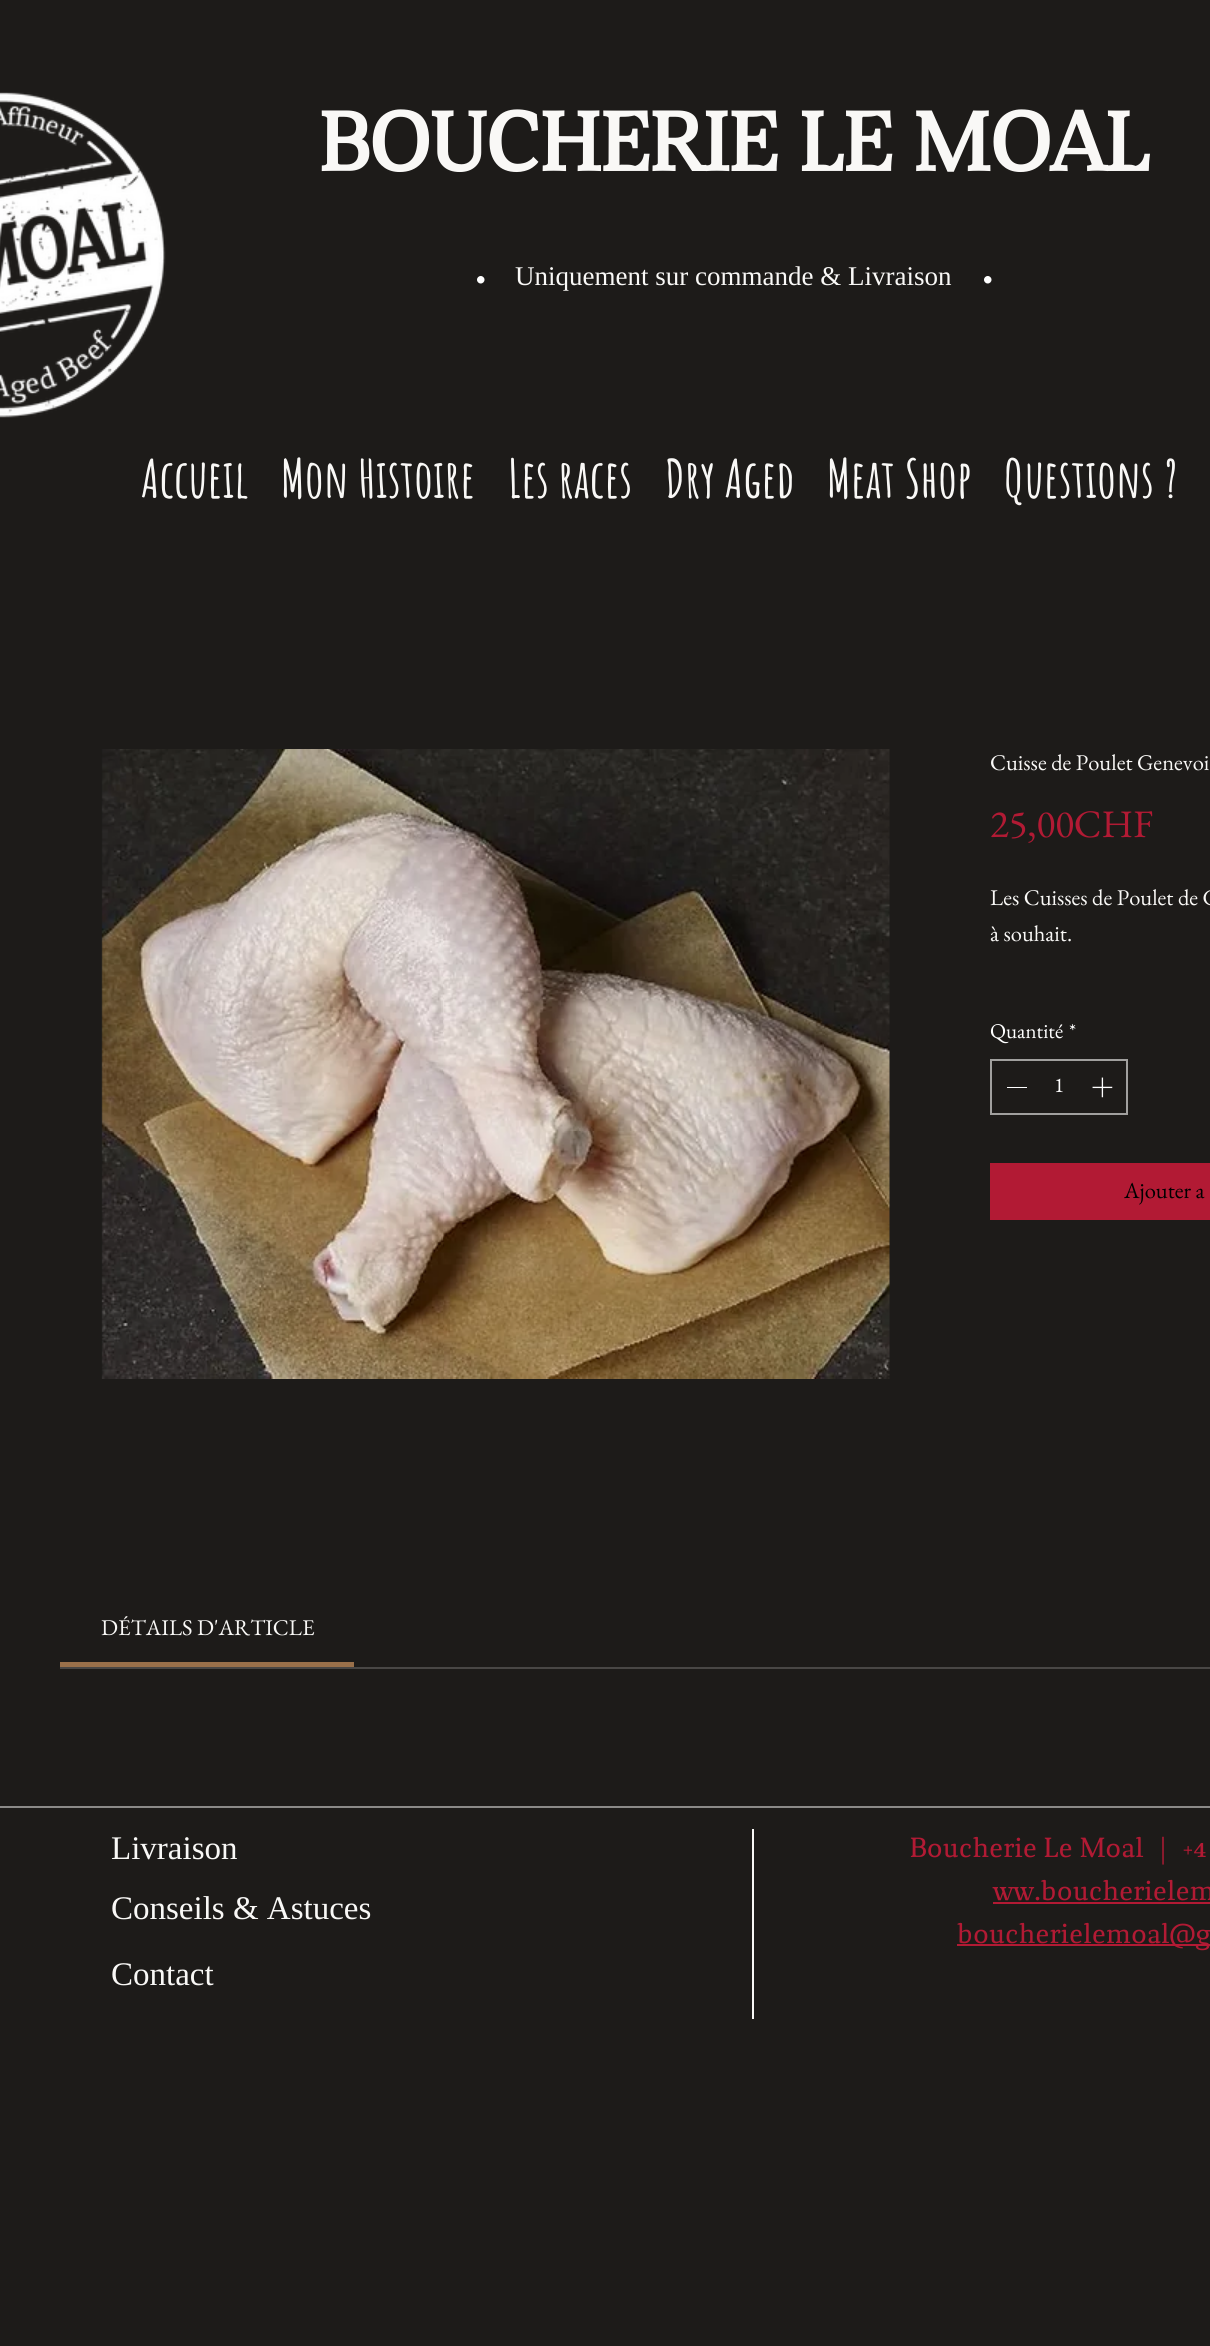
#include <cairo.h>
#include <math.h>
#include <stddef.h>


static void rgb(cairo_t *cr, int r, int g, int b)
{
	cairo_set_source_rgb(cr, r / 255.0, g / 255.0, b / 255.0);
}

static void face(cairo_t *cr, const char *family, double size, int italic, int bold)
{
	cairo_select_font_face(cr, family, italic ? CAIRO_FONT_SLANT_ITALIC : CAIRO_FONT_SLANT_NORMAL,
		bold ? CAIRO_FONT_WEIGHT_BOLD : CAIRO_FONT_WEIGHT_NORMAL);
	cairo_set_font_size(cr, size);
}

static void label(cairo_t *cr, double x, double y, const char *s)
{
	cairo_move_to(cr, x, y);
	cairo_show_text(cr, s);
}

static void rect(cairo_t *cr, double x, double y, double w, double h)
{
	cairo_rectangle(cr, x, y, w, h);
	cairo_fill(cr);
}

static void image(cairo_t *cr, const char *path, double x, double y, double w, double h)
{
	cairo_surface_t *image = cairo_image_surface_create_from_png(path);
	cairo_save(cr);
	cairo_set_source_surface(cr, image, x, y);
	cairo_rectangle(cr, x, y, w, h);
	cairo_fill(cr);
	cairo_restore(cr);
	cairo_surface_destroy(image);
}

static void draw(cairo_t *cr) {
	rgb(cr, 29, 27, 25);
	cairo_paint(cr);
	image(cr, "image0.png", 0, 92, 166, 326);
	face(cr, "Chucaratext", 85.5, 0, 1);
	rgb(cr, 249, 248, 246);
	label(cr, 319, 171, "BOUCHERIE LE MOAL");
	image(cr, "image1.png", 477, 276, 8, 8);
	face(cr, "Liberation Serif", 27, 0, 0);
	label(cr, 515, 285, "Uniquement sur commande & Livraison");
	image(cr, "image1.png", 984, 276, 8, 8);
	face(cr, "Amatic SC", 52.5, 0, 1);
	label(cr, 141, 498, "Accueil");
	label(cr, 281, 498, "Mon Histoire");
	label(cr, 508, 498, "Les races");
	label(cr, 665, 498, "Dry Aged");
	label(cr, 827, 498, "Meat Shop");
	label(cr, 1004, 498, "Questions ?");
	image(cr, "image2.png", 101, 749, 789, 630);
	face(cr, "EB Garamond", 22.5, 0, 0);
	label(cr, 990, 770, "Cuisse de Poulet Genevoi");
	face(cr, "EB Garamond", 39, 0, 0);
	rgb(cr, 178, 26, 52);
	label(cr, 990, 837, "25,00CHF");
	face(cr, "EB Garamond", 22.5, 0, 0);
	rgb(cr, 249, 248, 246);
	label(cr, 990, 905, "Les Cuisses de Poulet de G");
	label(cr, 990, 941, "à souhait.");
	face(cr, "EB Garamond", 21, 0, 0);
	rgb(cr, 255, 255, 255);
	label(cr, 990, 1038, "Quantité");
	label(cr, 1069, 1038, "*");
	cairo_rectangle(cr, 991, 1060, 136, 54);
	rgb(cr, 161, 160, 158);
	cairo_stroke(cr);
	rgb(cr, 255, 255, 255);
	rect(cr, 1007, 1087, 20, 1);
	label(cr, 1054, 1092, "1");
	image(cr, "image3.png", 1092, 1077, 21, 21);
	rgb(cr, 178, 26, 52);
	rect(cr, 990, 1163, 220, 57);
	face(cr, "EB Garamond", 22.5, 0, 0);
	rgb(cr, 0, 0, 0);
	label(cr, 1124, 1198, "Ajouter a");
	rgb(cr, 73, 71, 69);
	rect(cr, 60, 1667, 1150, 2);
	rgb(cr, 153, 112, 74);
	rect(cr, 60, 1662, 294, 5);
	rgb(cr, 249, 248, 246);
	label(cr, 101, 1635, "DÉTAILS D'ARTICLE");
	rgb(cr, 139, 138, 136);
	rect(cr, 0, 1806, 1210, 2);
	face(cr, "Liberation Serif", 33, 0, 0);
	rgb(cr, 249, 248, 246);
	label(cr, 111, 1859, "Livraison");
	rect(cr, 752, 1829, 2, 190);
	face(cr, "Chucaratext", 28.5, 0, 0);
	rgb(cr, 178, 26, 52);
	label(cr, 910, 1857, "Boucherie Le Moal  |  +4");
	label(cr, 993, 1900, "ww.boucherielem");
	rect(cr, 993, 1902, 217, 2);
	rect(cr, 957, 1944, 253, 2);
	label(cr, 957, 1943, "boucherielemoal@g");
	face(cr, "Liberation Serif", 33, 0, 0);
	rgb(cr, 249, 248, 246);
	label(cr, 111, 1919, "Conseils & Astuces");
	label(cr, 111, 1985, "Contact");
}

int main(void) {
	cairo_surface_t *surface = cairo_image_surface_create(CAIRO_FORMAT_RGB24, 1210, 2346);
	cairo_t *cr = cairo_create(surface);
	cairo_font_options_t *options = cairo_font_options_create();
	cairo_font_options_set_hint_metrics(options, CAIRO_HINT_METRICS_OFF);
	cairo_font_options_set_hint_style(options, CAIRO_HINT_STYLE_NONE);
	cairo_set_font_options(cr, options);
	cairo_set_miter_limit(cr, 4);
	draw(cr);
	cairo_surface_write_to_png(surface, "render.png");
	cairo_font_options_destroy(options);
	cairo_destroy(cr);
	cairo_surface_destroy(surface);
	return 0;
}
